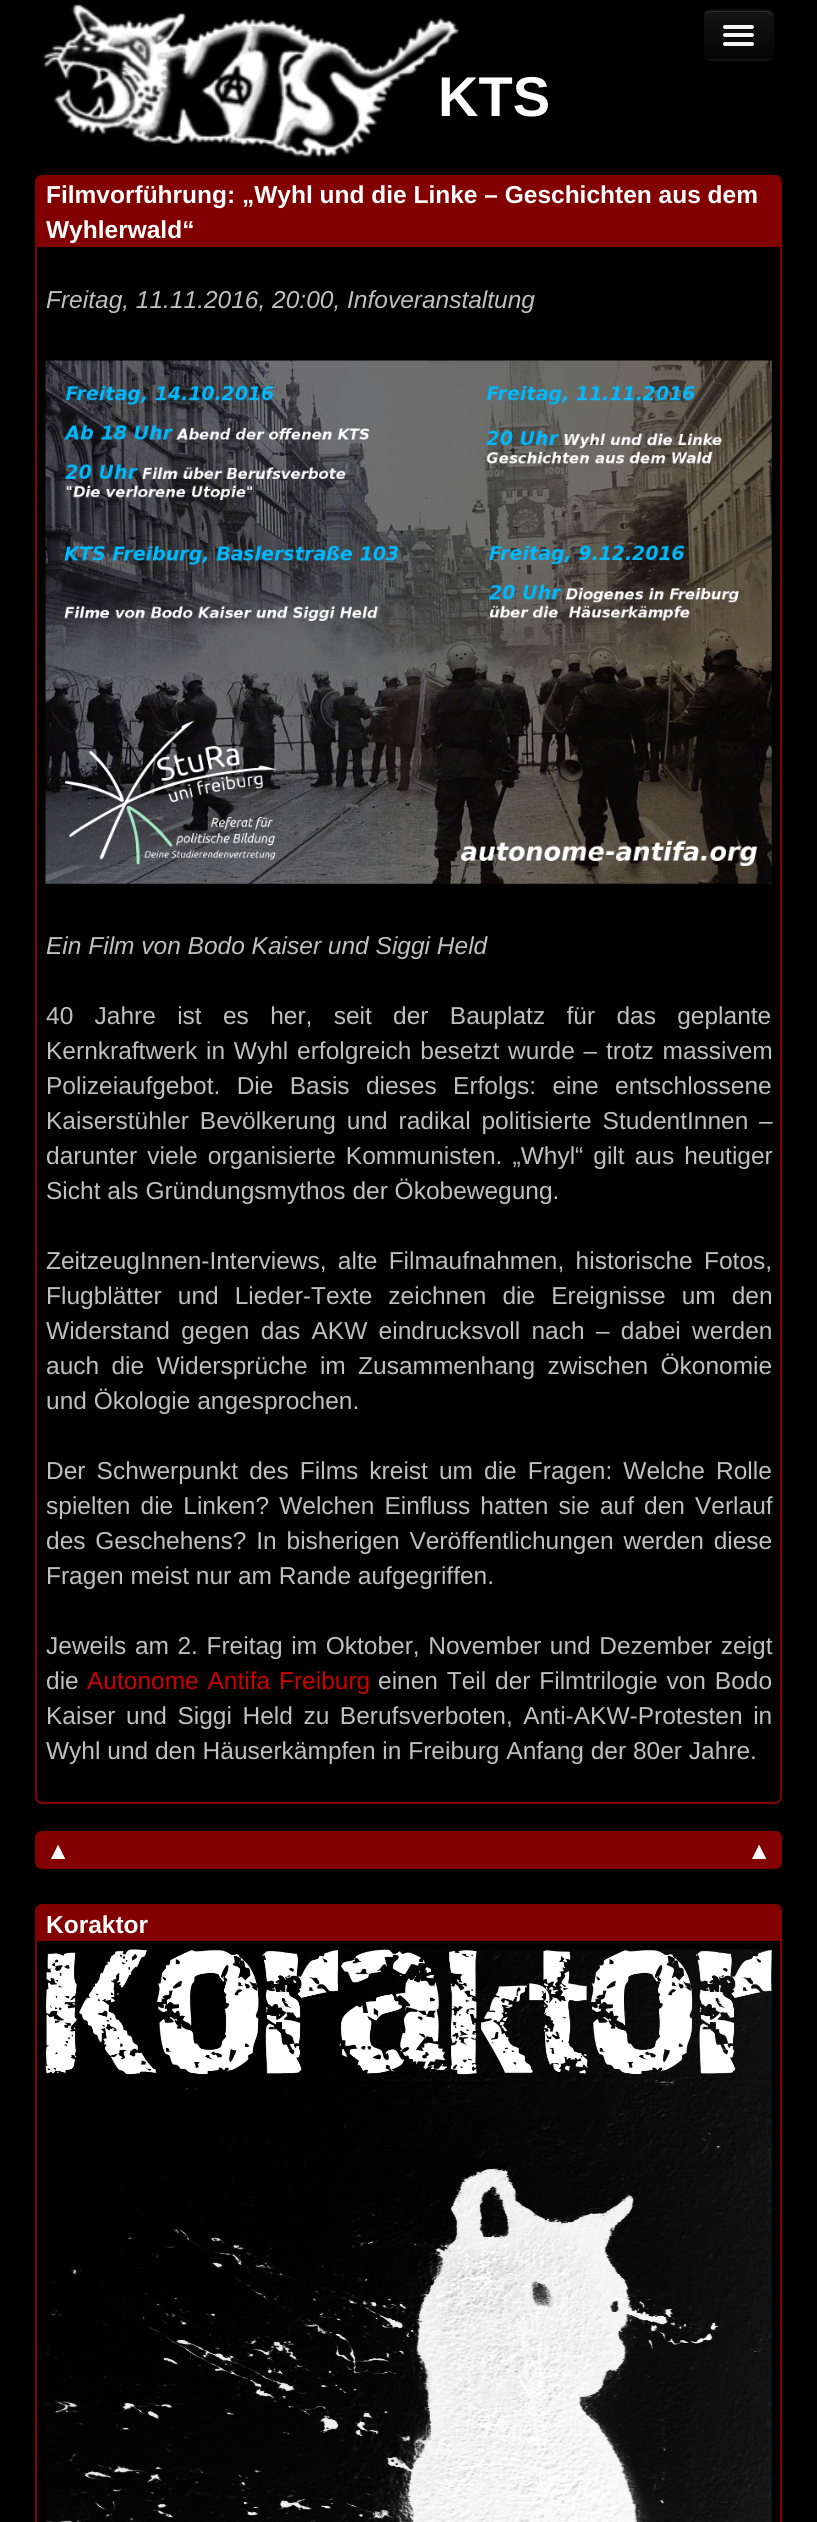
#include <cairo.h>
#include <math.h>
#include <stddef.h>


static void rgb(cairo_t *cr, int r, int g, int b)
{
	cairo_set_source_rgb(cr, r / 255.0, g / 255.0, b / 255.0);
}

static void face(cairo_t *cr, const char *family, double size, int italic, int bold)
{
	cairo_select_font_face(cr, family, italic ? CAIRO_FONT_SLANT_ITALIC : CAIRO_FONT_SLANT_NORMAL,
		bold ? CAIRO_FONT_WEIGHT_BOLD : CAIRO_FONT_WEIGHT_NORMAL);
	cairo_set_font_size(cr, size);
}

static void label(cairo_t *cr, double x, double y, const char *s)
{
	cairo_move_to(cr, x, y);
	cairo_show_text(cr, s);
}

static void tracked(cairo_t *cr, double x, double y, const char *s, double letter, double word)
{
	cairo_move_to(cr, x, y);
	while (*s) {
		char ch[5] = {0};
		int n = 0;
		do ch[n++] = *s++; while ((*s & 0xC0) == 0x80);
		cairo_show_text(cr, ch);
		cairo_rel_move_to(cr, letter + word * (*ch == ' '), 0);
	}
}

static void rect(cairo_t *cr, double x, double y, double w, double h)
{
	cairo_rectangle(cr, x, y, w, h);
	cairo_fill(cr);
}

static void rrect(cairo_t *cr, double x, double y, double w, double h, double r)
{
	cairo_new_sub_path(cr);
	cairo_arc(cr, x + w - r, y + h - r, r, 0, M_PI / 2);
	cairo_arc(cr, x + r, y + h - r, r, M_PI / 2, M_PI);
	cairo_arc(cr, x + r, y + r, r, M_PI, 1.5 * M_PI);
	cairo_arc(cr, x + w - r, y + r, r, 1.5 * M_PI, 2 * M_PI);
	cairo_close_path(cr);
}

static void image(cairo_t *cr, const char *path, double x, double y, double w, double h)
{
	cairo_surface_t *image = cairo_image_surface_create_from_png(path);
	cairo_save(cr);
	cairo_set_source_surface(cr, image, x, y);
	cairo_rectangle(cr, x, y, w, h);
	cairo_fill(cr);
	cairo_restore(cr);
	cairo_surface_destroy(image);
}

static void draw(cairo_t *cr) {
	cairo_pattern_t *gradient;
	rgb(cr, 0, 0, 0);
	cairo_paint(cr);
	rgb(cr, 19, 19, 19);
	cairo_new_path(cr);
	cairo_move_to(cr, 704, 55);
	cairo_curve_to(cr, 705, 59, 708, 61, 711, 61);
	cairo_line_to(cr, 767, 61);
	cairo_curve_to(cr, 771, 61, 774, 58, 774, 54);
	cairo_line_to(cr, 774, 18);
	cairo_line_to(cr, 773, 15);
	cairo_line_to(cr, 774, 46);
	cairo_curve_to(cr, 774, 61, 771, 60, 757, 60);
	cairo_line_to(cr, 720, 60);
	cairo_curve_to(cr, 715, 60, 707, 61, 704, 55);
	cairo_close_path(cr);
	cairo_fill(cr);
	rgb(cr, 14, 14, 14);
	rrect(cr, 704, 9, 70, 51, 7);
	cairo_fill(cr);
	cairo_save(cr);
	rrect(cr, 704, 9, 70, 51, 7);
	cairo_clip(cr);
	gradient = cairo_pattern_create_linear(739, 10, 739, 58);
	cairo_pattern_add_color_stop_rgba(gradient, 0, 0.082, 0.082, 0.082, 1);
	cairo_pattern_add_color_stop_rgba(gradient, 1, 0.016, 0.016, 0.016, 1);
	cairo_set_source(cr, gradient);
	cairo_pattern_destroy(gradient);
	rect(cr, 704, 11, 70, 47);
	cairo_restore(cr);
	rgb(cr, 44, 44, 44);
	cairo_new_path(cr);
	cairo_move_to(cr, 710, 12);
	cairo_line_to(cr, 766, 12);
	cairo_curve_to(cr, 769, 12, 772, 15, 772, 18);
	cairo_curve_to(cr, 772, 9, 765, 11, 758, 11);
	cairo_line_to(cr, 720, 11);
	cairo_curve_to(cr, 712, 11, 705, 9, 705, 18);
	cairo_curve_to(cr, 705, 15, 708, 12, 710, 12);
	cairo_close_path(cr);
	cairo_fill(cr);
	cairo_new_path(cr);
	cairo_move_to(cr, 771, 57);
	cairo_curve_to(cr, 769.5, 58, 768, 58.5, 766.5, 58.5);
	cairo_line_to(cr, 710.5, 58.5);
	cairo_curve_to(cr, 709, 58.5, 707.5, 58, 706, 57);
	cairo_set_source_rgba(cr, 0, 0, 0, 0.25);
	cairo_set_line_width(cr, 1.8);
	cairo_stroke(cr);
	rgb(cr, 11, 11, 11);
	cairo_new_path(cr);
	cairo_move_to(cr, 723, 27.5);
	cairo_curve_to(cr, 722, 31, 728.5, 30, 729.5, 30);
	cairo_line_to(cr, 747.5, 30);
	cairo_curve_to(cr, 748.5, 30, 755, 31, 754, 27.5);
	cairo_line_to(cr, 752.5, 28);
	cairo_line_to(cr, 724.5, 28);
	cairo_close_path(cr);
	cairo_fill(cr);
	rgb(cr, 245, 245, 245);
	rrect(cr, 723, 25, 31, 4, 2);
	cairo_fill(cr);
	rgb(cr, 8, 8, 8);
	cairo_new_path(cr);
	cairo_move_to(cr, 723, 36);
	cairo_curve_to(cr, 721.5, 40, 728.5, 39, 729.5, 39);
	cairo_line_to(cr, 747.5, 39);
	cairo_curve_to(cr, 748.5, 39, 755.5, 40, 754, 36);
	cairo_line_to(cr, 752.5, 36.5);
	cairo_line_to(cr, 724.5, 36.5);
	cairo_close_path(cr);
	cairo_fill(cr);
	rgb(cr, 245, 245, 245);
	rrect(cr, 723, 33, 31, 4, 2);
	cairo_fill(cr);
	rrect(cr, 723, 42, 31, 4, 2);
	cairo_fill(cr);
	image(cr, "image0.png", 43, 3, 417, 155);
	face(cr, "Liberation Sans", 56, 0, 1);
	rgb(cr, 255, 255, 255);
	label(cr, 438, 116, "KTS");
	rrect(cr, 36, 176, 745, 1627, 6);
	rgb(cr, 130, 0, 0);
	cairo_set_line_width(cr, 2);
	cairo_stroke(cr);
	rect(cr, 37, 177, 744, 70);
	face(cr, "Liberation Sans", 24.5, 0, 1);
	rgb(cr, 255, 255, 255);
	label(cr, 46, 203, "Filmvorführung: „Wyhl und die Linke – Geschichten aus dem");
	label(cr, 46, 238, "Wyhlerwald“");
	face(cr, "Liberation Sans", 24.5, 1, 0);
	rgb(cr, 192, 192, 192);
	label(cr, 46, 308, "Freitag, 11.11.2016, 20:00, Infoveranstaltung");
	image(cr, "image1.png", 45, 360, 727, 524);
	label(cr, 46, 954, "Ein Film von Bodo Kaiser und Siggi Held");
	face(cr, "Liberation Sans", 24.5, 0, 0);
	tracked(cr, 46, 1024, "40 Jahre ist es her, seit der Bauplatz für das geplante", 0, 14.5);
	tracked(cr, 46, 1059, "Kernkraftwerk in Wyhl erfolgreich besetzt wurde – trotz massivem", 0, 2);
	tracked(cr, 46, 1094, "Polizeiaufgebot. Die Basis dieses Erfolgs: eine entschlossene", 0, 9.5);
	tracked(cr, 46, 1129, "Kaiserstühler Bevölkerung und radikal politisierte StudentInnen –", 0, 4);
	tracked(cr, 46, 1164, "darunter viele organisierte Kommunisten. „Whyl“ gilt aus heutiger", 0, 3.25);
	label(cr, 46, 1199, "Sicht als Gründungsmythos der Ökobewegung.");
	tracked(cr, 46, 1269, "ZeitzeugInnen-Interviews, alte Filmaufnahmen, historische Fotos,", 0, 4.5);
	tracked(cr, 46, 1304, "Flugblätter und Lieder-Texte zeichnen die Ereignisse um den", 0, 9.25);
	tracked(cr, 46, 1339, "Widerstand gegen das AKW eindrucksvoll nach – dabei werden", 0, 4.5);
	tracked(cr, 46, 1374, "auch die Widersprüche im Zusammenhang zwischen Ökonomie", 0, 5.5);
	label(cr, 46, 1409, "und Ökologie angesprochen.");
	tracked(cr, 46, 1479, "Der Schwerpunkt des Films kreist um die Fragen: Welche Rolle", 0, 4.25);
	tracked(cr, 46, 1514, "spielten die Linken? Welchen Einfluss hatten sie auf den Verlauf", 0, 3.25);
	tracked(cr, 46, 1549, "des Geschehens? In bisherigen Veröffentlichungen werden diese", 0, 3);
	label(cr, 46, 1584, "Fragen meist nur am Rande aufgegriffen.");
	tracked(cr, 46, 1654, "Jeweils am 2. Freitag im Oktober, November und Dezember zeigt", 0, 1.75);
	label(cr, 46, 1689, "die");
	rgb(cr, 204, 0, 0);
	tracked(cr, 87, 1689, "Autonome Antifa Freiburg", 0, 2);
	rgb(cr, 192, 192, 192);
	tracked(cr, 378, 1689, "einen Teil der Filmtrilogie von Bodo", 0, 2);
	tracked(cr, 46, 1724, "Kaiser und Siggi Held zu Berufsverboten, Anti-AKW-Protesten in", 0, 3.75);
	label(cr, 46, 1759, "Wyhl und den Häuserkämpfen in Freiburg Anfang der 80er Jahre.");
	rgb(cr, 130, 0, 0);
	rrect(cr, 36, 1832, 745, 36, 6);
	cairo_fill_preserve(cr);
	cairo_stroke(cr);
	rgb(cr, 255, 255, 255);
	label(cr, 46, 1859, "▲");
	label(cr, 747, 1859, "▲");
	rrect(cr, 36, 1905, 745, 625, 6);
	rgb(cr, 130, 0, 0);
	cairo_stroke(cr);
	rect(cr, 37, 1906, 744, 35);
	face(cr, "Liberation Sans", 24.5, 0, 1);
	rgb(cr, 255, 255, 255);
	label(cr, 46, 1933, "Koraktor");
	image(cr, "image2.png", 45, 1949, 727, 573);
}

int main(void) {
	cairo_surface_t *surface = cairo_image_surface_create(CAIRO_FORMAT_RGB24, 817, 2522);
	cairo_t *cr = cairo_create(surface);
	cairo_font_options_t *options = cairo_font_options_create();
	cairo_font_options_set_hint_metrics(options, CAIRO_HINT_METRICS_OFF);
	cairo_font_options_set_hint_style(options, CAIRO_HINT_STYLE_NONE);
	cairo_set_font_options(cr, options);
	cairo_set_miter_limit(cr, 4);
	draw(cr);
	cairo_surface_write_to_png(surface, "render.png");
	cairo_font_options_destroy(options);
	cairo_destroy(cr);
	cairo_surface_destroy(surface);
	return 0;
}
